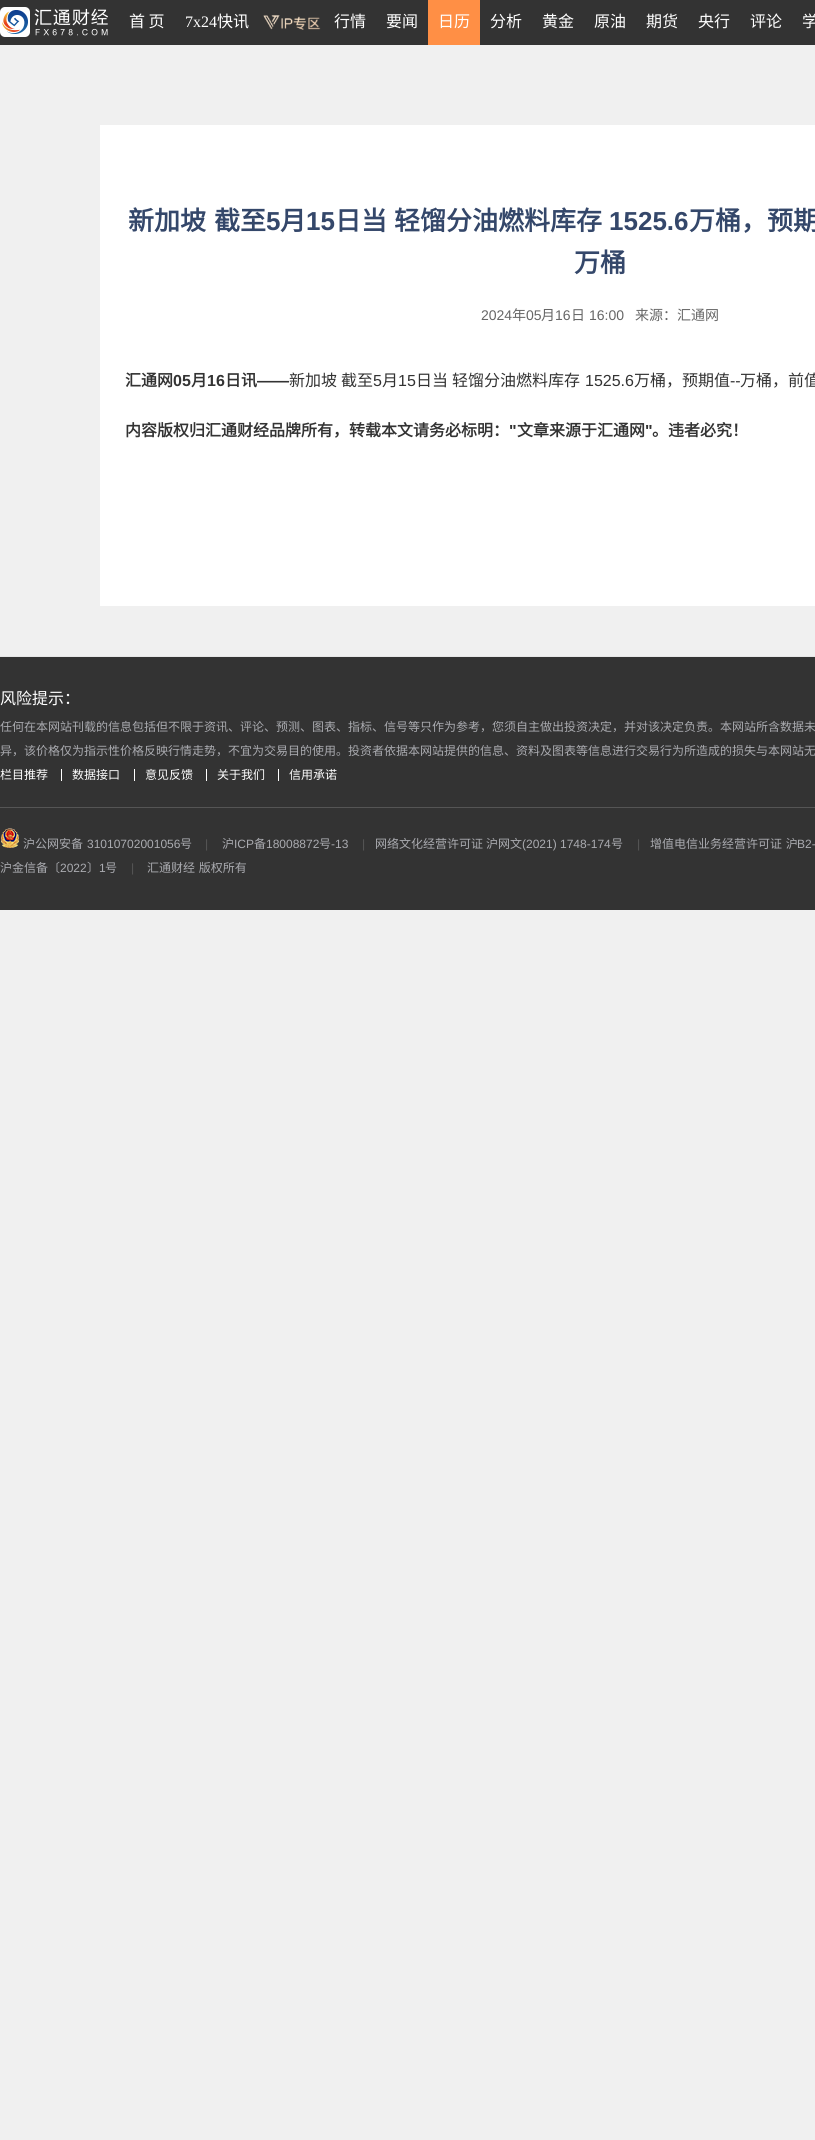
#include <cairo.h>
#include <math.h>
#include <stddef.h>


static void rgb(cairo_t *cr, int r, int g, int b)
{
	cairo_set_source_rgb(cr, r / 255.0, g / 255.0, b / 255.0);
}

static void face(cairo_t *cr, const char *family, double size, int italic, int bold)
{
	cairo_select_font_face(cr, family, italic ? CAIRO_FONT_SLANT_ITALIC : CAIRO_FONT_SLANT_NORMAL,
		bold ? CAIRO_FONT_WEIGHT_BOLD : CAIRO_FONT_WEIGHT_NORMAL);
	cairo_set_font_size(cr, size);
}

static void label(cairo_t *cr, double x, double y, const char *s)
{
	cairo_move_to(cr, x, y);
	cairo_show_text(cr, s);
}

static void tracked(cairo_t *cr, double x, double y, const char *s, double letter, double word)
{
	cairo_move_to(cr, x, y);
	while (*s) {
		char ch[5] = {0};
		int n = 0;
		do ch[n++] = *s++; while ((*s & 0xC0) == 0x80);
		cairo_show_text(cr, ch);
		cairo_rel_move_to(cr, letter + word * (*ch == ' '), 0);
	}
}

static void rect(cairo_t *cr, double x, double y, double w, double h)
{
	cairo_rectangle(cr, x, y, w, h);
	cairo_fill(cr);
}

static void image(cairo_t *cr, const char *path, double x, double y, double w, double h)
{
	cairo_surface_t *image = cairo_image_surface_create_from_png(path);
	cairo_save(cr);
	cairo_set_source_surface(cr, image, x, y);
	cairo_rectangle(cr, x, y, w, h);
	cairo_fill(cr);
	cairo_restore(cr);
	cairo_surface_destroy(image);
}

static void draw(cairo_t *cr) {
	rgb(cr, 240, 240, 240);
	cairo_paint(cr);
	rgb(cr, 51, 51, 51);
	rect(cr, 0, 0, 815, 45);
	image(cr, "image0.png", 0, 7, 108, 30);
	face(cr, "Noto Sans CJK SC", 16, 0, 0);
	rgb(cr, 255, 255, 255);
	label(cr, 129, 27, "首 页");
	face(cr, "Liberation Serif", 16, 0, 0);
	label(cr, 185, 27, "7x24");
	face(cr, "Noto Sans CJK SC", 16, 0, 0);
	label(cr, 217, 27, "快讯");
	image(cr, "image1.png", 263, 15, 58, 15);
	label(cr, 334, 27, "行情");
	label(cr, 386, 27, "要闻");
	rgb(cr, 255, 143, 69);
	rect(cr, 428, 0, 52, 45);
	rgb(cr, 255, 255, 255);
	label(cr, 438, 27, "日历");
	label(cr, 490, 27, "分析");
	label(cr, 542, 27, "黄金");
	label(cr, 594, 27, "原油");
	label(cr, 646, 27, "期货");
	label(cr, 698, 27, "央行");
	label(cr, 750, 27, "评论");
	label(cr, 802, 27, "学");
	rect(cr, 100, 125, 715, 481);
	face(cr, "Noto Sans CJK SC", 26, 0, 1);
	rgb(cr, 52, 71, 106);
	label(cr, 128, 230, "新加坡");
	label(cr, 214, 230, "截至");
	face(cr, "Liberation Sans", 26, 0, 1);
	label(cr, 266, 230, "5");
	face(cr, "Noto Sans CJK SC", 26, 0, 1);
	label(cr, 280, 230, "月");
	face(cr, "Liberation Sans", 26, 0, 1);
	label(cr, 306, 230, "15");
	face(cr, "Noto Sans CJK SC", 26, 0, 1);
	label(cr, 335, 230, "日当");
	label(cr, 394, 230, "轻馏分油燃料库存");
	face(cr, "Liberation Sans", 26, 0, 1);
	label(cr, 609, 230, "1525.6");
	face(cr, "Noto Sans CJK SC", 26, 0, 1);
	label(cr, 689, 230, "万桶，预期");
	label(cr, 574, 272, "万桶");
	face(cr, "Liberation Sans", 14, 0, 0);
	rgb(cr, 102, 102, 102);
	label(cr, 481, 320, "2024");
	face(cr, "Noto Sans CJK SC", 14, 0, 0);
	label(cr, 512, 320, "年");
	face(cr, "Liberation Sans", 14, 0, 0);
	label(cr, 526, 320, "05");
	face(cr, "Noto Sans CJK SC", 14, 0, 0);
	label(cr, 541, 320, "月");
	face(cr, "Liberation Sans", 14, 0, 0);
	label(cr, 555, 320, "16");
	face(cr, "Noto Sans CJK SC", 14, 0, 0);
	label(cr, 571, 320, "日");
	face(cr, "Liberation Sans", 14, 0, 0);
	label(cr, 589, 320, "16:00");
	face(cr, "Noto Sans CJK SC", 14, 0, 0);
	label(cr, 635, 320, "来源：汇通网");
	face(cr, "Noto Sans CJK SC", 16, 0, 1);
	rgb(cr, 51, 51, 51);
	label(cr, 125, 386, "汇通网");
	face(cr, "Liberation Sans", 16, 0, 1);
	label(cr, 173, 386, "05");
	face(cr, "Noto Sans CJK SC", 16, 0, 1);
	label(cr, 191, 386, "月");
	face(cr, "Liberation Sans", 16, 0, 1);
	label(cr, 207, 386, "16");
	face(cr, "Noto Sans CJK SC", 16, 0, 1);
	label(cr, 225, 386, "日讯");
	face(cr, "Liberation Sans", 16, 0, 1);
	label(cr, 257, 386, "——");
	face(cr, "Noto Sans CJK SC", 16, 0, 0);
	label(cr, 289, 386, "新加坡");
	label(cr, 341, 386, "截至");
	face(cr, "Liberation Sans", 16, 0, 0);
	label(cr, 373, 386, "5");
	face(cr, "Noto Sans CJK SC", 16, 0, 0);
	label(cr, 382, 386, "月");
	face(cr, "Liberation Sans", 16, 0, 0);
	label(cr, 398, 386, "15");
	face(cr, "Noto Sans CJK SC", 16, 0, 0);
	label(cr, 416, 386, "日当");
	label(cr, 452, 386, "轻馏分油燃料库存");
	face(cr, "Liberation Sans", 16, 0, 0);
	label(cr, 585, 386, "1525.6");
	face(cr, "Noto Sans CJK SC", 16, 0, 0);
	label(cr, 634, 386, "万桶，预期值");
	face(cr, "Liberation Sans", 16, 0, 0);
	label(cr, 730, 386, "--");
	face(cr, "Noto Sans CJK SC", 16, 0, 0);
	label(cr, 740, 386, "万桶，前值");
	face(cr, "Noto Sans CJK SC", 16, 0, 1);
	label(cr, 125, 436, "内容版权归汇通财经品牌所有，转载本文请务必标明：");
	face(cr, "Liberation Sans", 16, 0, 1);
	label(cr, 509, 436, "\"");
	face(cr, "Noto Sans CJK SC", 16, 0, 1);
	label(cr, 517, 436, "文章来源于汇通网");
	face(cr, "Liberation Sans", 16, 0, 1);
	label(cr, 645, 436, "\"");
	face(cr, "Noto Sans CJK SC", 16, 0, 1);
	label(cr, 652, 436, "。违者必究！");
	rect(cr, 0, 657, 815, 253);
	rgb(cr, 230, 230, 230);
	rect(cr, 0, 656, 815, 1);
	face(cr, "Noto Sans CJK SC", 16, 0, 0);
	rgb(cr, 255, 255, 255);
	label(cr, 0, 704, "风险提示：");
	face(cr, "Noto Sans CJK SC", 12, 0, 0);
	rgb(cr, 170, 171, 176);
	label(cr, 0, 731, "任何在本网站刊载的信息包括但不限于资讯、评论、预测、图表、指标、信号等只作为参考，您须自主做出投资决定，并对该决定负责。本网站所含数据未");
	label(cr, 0, 755, "异，该价格仅为指示性价格反映行情走势，不宜为交易目的使用。投资者依据本网站提供的信息、资料及图表等信息进行交易行为所造成的损失与本网站无");
	rgb(cr, 255, 255, 255);
	label(cr, 0, 779, "栏目推荐");
	rect(cr, 61, 769, 1, 12);
	label(cr, 72, 779, "数据接口");
	rect(cr, 134, 769, 1, 12);
	label(cr, 145, 779, "意见反馈");
	rect(cr, 206, 769, 1, 12);
	label(cr, 217, 779, "关于我们");
	rect(cr, 278, 769, 1, 12);
	label(cr, 289, 779, "信用承诺");
	rgb(cr, 85, 85, 85);
	rect(cr, 0, 807, 815, 1);
	image(cr, "image2.png", 1, 828, 18, 20);
	rgb(cr, 170, 171, 176);
	label(cr, 23, 848, "沪公网安备");
	face(cr, "Liberation Sans", 12, 0, 0);
	label(cr, 87, 848, "31010702001056");
	face(cr, "Noto Sans CJK SC", 12, 0, 0);
	label(cr, 180, 848, "号");
	face(cr, "Liberation Sans", 12, 0, 0);
	rgb(cr, 85, 85, 85);
	label(cr, 205, 848, "|");
	face(cr, "Noto Sans CJK SC", 12, 0, 0);
	rgb(cr, 170, 171, 176);
	label(cr, 222, 848, "沪");
	face(cr, "Liberation Sans", 12, 0, 0);
	label(cr, 234, 848, "ICP");
	face(cr, "Noto Sans CJK SC", 12, 0, 0);
	label(cr, 254, 848, "备");
	face(cr, "Liberation Sans", 12, 0, 0);
	label(cr, 266, 848, "18008872");
	face(cr, "Noto Sans CJK SC", 12, 0, 0);
	label(cr, 319, 848, "号");
	face(cr, "Liberation Sans", 12, 0, 0);
	label(cr, 331, 848, "-13");
	rgb(cr, 85, 85, 85);
	label(cr, 362, 848, "|");
	face(cr, "Noto Sans CJK SC", 12, 0, 0);
	rgb(cr, 170, 171, 176);
	label(cr, 375, 848, "网络文化经营许可证");
	label(cr, 486, 848, "沪网文");
	face(cr, "Liberation Sans", 12, 0, 0);
	label(cr, 522, 848, "(2021) 1748-174");
	face(cr, "Noto Sans CJK SC", 12, 0, 0);
	label(cr, 611, 848, "号");
	face(cr, "Liberation Sans", 12, 0, 0);
	rgb(cr, 85, 85, 85);
	label(cr, 637, 848, "|");
	face(cr, "Noto Sans CJK SC", 12, 0, 0);
	rgb(cr, 170, 171, 176);
	tracked(cr, 650, 848, "增值电信业务经营许可证 沪", 0, 1);
	face(cr, "Liberation Sans", 12, 0, 0);
	label(cr, 797, 848, "B2-");
	face(cr, "Noto Sans CJK SC", 12, 0, 0);
	label(cr, 0, 872, "沪金信备〔");
	face(cr, "Liberation Sans", 12, 0, 0);
	label(cr, 60, 872, "2022");
	face(cr, "Noto Sans CJK SC", 12, 0, 0);
	label(cr, 87, 872, "〕");
	face(cr, "Liberation Sans", 12, 0, 0);
	label(cr, 99, 872, "1");
	face(cr, "Noto Sans CJK SC", 12, 0, 0);
	label(cr, 105, 872, "号");
	face(cr, "Liberation Sans", 12, 0, 0);
	rgb(cr, 85, 85, 85);
	label(cr, 131, 872, "|");
	face(cr, "Noto Sans CJK SC", 12, 0, 0);
	rgb(cr, 170, 171, 176);
	tracked(cr, 147, 872, "汇通财经 版权所有", 0, 1);
}

int main(void) {
	cairo_surface_t *surface = cairo_image_surface_create(CAIRO_FORMAT_RGB24, 815, 2140);
	cairo_t *cr = cairo_create(surface);
	cairo_font_options_t *options = cairo_font_options_create();
	cairo_font_options_set_hint_metrics(options, CAIRO_HINT_METRICS_OFF);
	cairo_font_options_set_hint_style(options, CAIRO_HINT_STYLE_NONE);
	cairo_set_font_options(cr, options);
	cairo_set_miter_limit(cr, 4);
	draw(cr);
	cairo_surface_write_to_png(surface, "render.png");
	cairo_font_options_destroy(options);
	cairo_destroy(cr);
	cairo_surface_destroy(surface);
	return 0;
}
